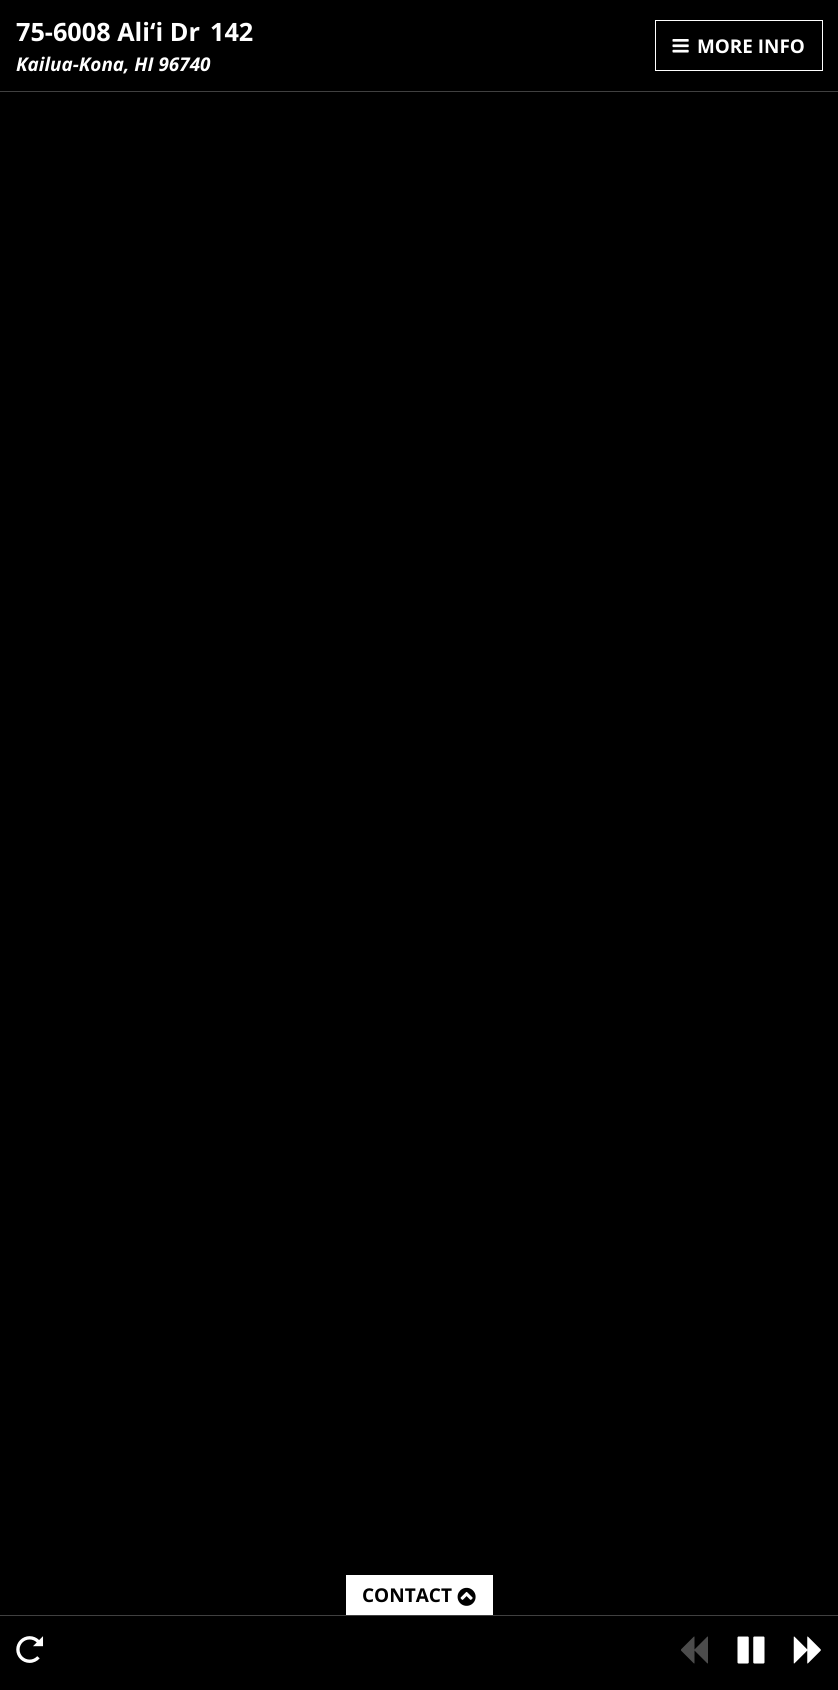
#include <cairo.h>
#include <math.h>
#include <stddef.h>


static void rgb(cairo_t *cr, int r, int g, int b)
{
	cairo_set_source_rgb(cr, r / 255.0, g / 255.0, b / 255.0);
}

static void face(cairo_t *cr, const char *family, double size, int italic, int bold)
{
	cairo_select_font_face(cr, family, italic ? CAIRO_FONT_SLANT_ITALIC : CAIRO_FONT_SLANT_NORMAL,
		bold ? CAIRO_FONT_WEIGHT_BOLD : CAIRO_FONT_WEIGHT_NORMAL);
	cairo_set_font_size(cr, size);
}

static void label(cairo_t *cr, double x, double y, const char *s)
{
	cairo_move_to(cr, x, y);
	cairo_show_text(cr, s);
}

static void rect(cairo_t *cr, double x, double y, double w, double h)
{
	cairo_rectangle(cr, x, y, w, h);
	cairo_fill(cr);
}

static void image(cairo_t *cr, const char *path, double x, double y, double w, double h)
{
	cairo_surface_t *image = cairo_image_surface_create_from_png(path);
	cairo_save(cr);
	cairo_set_source_surface(cr, image, x, y);
	cairo_rectangle(cr, x, y, w, h);
	cairo_fill(cr);
	cairo_restore(cr);
	cairo_surface_destroy(image);
}

static void draw(cairo_t *cr) {
	rgb(cr, 0, 0, 0);
	cairo_paint(cr);
	rgb(cr, 64, 64, 64);
	rect(cr, 0, 91, 838, 1);
	face(cr, "Open Sans", 25.25, 0, 1);
	rgb(cr, 255, 255, 255);
	label(cr, 16, 41, "75-6008 Ali‘i Dr");
	label(cr, 210, 41, "142");
	face(cr, "Open Sans", 18.9, 1, 1);
	label(cr, 16, 71, "Kailua-Kona, HI 96740");
	cairo_rectangle(cr, 655.5, 20.5, 167, 50);
	cairo_set_line_width(cr, 1);
	cairo_stroke(cr);
	image(cr, "image0.png", 672, 39, 17, 14);
	face(cr, "Open Sans", 18.9, 0, 1);
	label(cr, 697, 53, "MORE INFO");
	rect(cr, 346, 1575, 147, 40);
	face(cr, "Open Sans", 19, 0, 1);
	rgb(cr, 0, 0, 0);
	label(cr, 362, 1602, "CONTACT");
	image(cr, "image1.png", 457, 1587, 19, 19);
	rgb(cr, 64, 64, 64);
	rect(cr, 0, 1615, 838, 1);
	image(cr, "image2.png", 16, 1636, 28, 27);
	image(cr, "image3.png", 681, 1636, 27, 28);
	image(cr, "image4.png", 737, 1636, 28, 28);
	image(cr, "image5.png", 793, 1636, 28, 28);
}

int main(void) {
	cairo_surface_t *surface = cairo_image_surface_create(CAIRO_FORMAT_RGB24, 838, 1690);
	cairo_t *cr = cairo_create(surface);
	cairo_font_options_t *options = cairo_font_options_create();
	cairo_font_options_set_hint_metrics(options, CAIRO_HINT_METRICS_OFF);
	cairo_font_options_set_hint_style(options, CAIRO_HINT_STYLE_NONE);
	cairo_set_font_options(cr, options);
	cairo_set_miter_limit(cr, 4);
	draw(cr);
	cairo_surface_write_to_png(surface, "render.png");
	cairo_font_options_destroy(options);
	cairo_destroy(cr);
	cairo_surface_destroy(surface);
	return 0;
}
